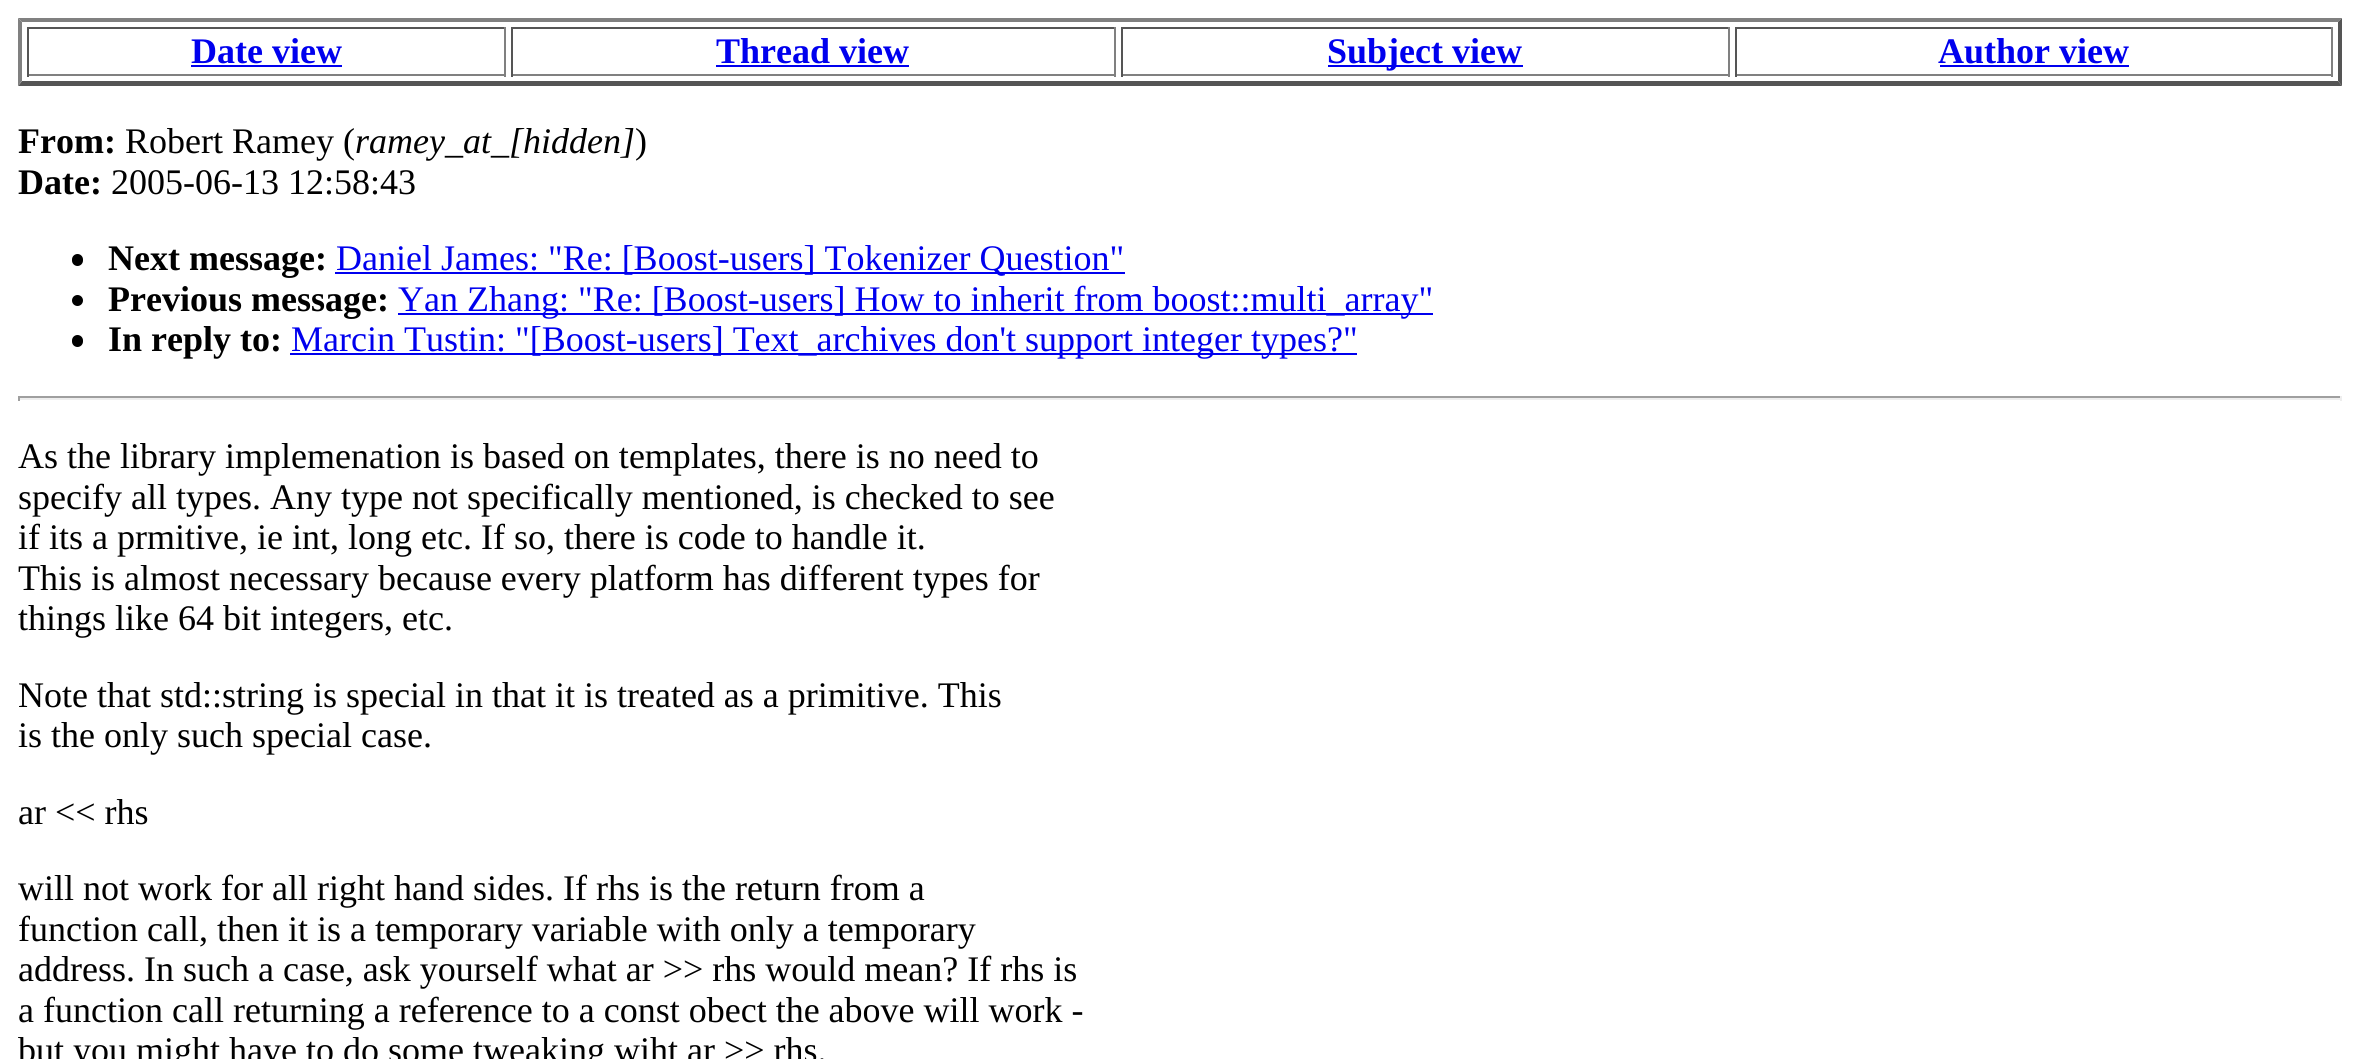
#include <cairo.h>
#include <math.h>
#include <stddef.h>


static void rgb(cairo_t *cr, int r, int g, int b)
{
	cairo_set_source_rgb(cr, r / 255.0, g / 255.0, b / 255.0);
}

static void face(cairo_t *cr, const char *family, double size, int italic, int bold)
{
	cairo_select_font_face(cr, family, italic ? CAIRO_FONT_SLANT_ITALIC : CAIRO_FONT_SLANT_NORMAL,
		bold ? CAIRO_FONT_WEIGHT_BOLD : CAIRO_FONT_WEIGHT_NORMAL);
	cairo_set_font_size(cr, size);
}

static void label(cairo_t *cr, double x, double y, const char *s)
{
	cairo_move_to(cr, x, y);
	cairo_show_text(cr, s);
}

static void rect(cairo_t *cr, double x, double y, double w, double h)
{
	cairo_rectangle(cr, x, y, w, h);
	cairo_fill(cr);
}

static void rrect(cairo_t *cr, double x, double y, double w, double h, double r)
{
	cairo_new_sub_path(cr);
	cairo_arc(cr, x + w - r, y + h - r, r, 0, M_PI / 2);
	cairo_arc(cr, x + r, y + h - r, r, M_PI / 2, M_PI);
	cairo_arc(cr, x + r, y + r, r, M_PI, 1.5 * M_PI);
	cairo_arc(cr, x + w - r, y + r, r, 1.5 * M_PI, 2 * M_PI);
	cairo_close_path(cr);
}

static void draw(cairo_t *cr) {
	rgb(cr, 255, 255, 255);
	cairo_paint(cr);
	rgb(cr, 128, 128, 128);
	cairo_new_path(cr);
	cairo_move_to(cr, 18, 18);
	cairo_line_to(cr, 2342, 18);
	cairo_line_to(cr, 2338, 22);
	cairo_line_to(cr, 22, 22);
	cairo_close_path(cr);
	cairo_fill(cr);
	rgb(cr, 85, 85, 85);
	cairo_new_path(cr);
	cairo_move_to(cr, 2342, 18);
	cairo_line_to(cr, 2342, 86);
	cairo_line_to(cr, 2338, 81);
	cairo_line_to(cr, 2338, 22);
	cairo_close_path(cr);
	cairo_fill(cr);
	cairo_new_path(cr);
	cairo_move_to(cr, 2342, 86);
	cairo_line_to(cr, 18, 86);
	cairo_line_to(cr, 22, 81);
	cairo_line_to(cr, 2338, 81);
	cairo_close_path(cr);
	cairo_fill(cr);
	rgb(cr, 128, 128, 128);
	cairo_new_path(cr);
	cairo_move_to(cr, 18, 86);
	cairo_line_to(cr, 18, 18);
	cairo_line_to(cr, 22, 22);
	cairo_line_to(cr, 22, 81);
	cairo_close_path(cr);
	cairo_fill(cr);
	rgb(cr, 85, 85, 85);
	rect(cr, 27, 27, 479, 2);
	rgb(cr, 128, 128, 128);
	rect(cr, 504, 27, 2, 50);
	rect(cr, 27, 74, 479, 2);
	rgb(cr, 85, 85, 85);
	rect(cr, 27, 27, 2, 50);
	face(cr, "Liberation Serif", 36, 0, 1);
	rgb(cr, 0, 0, 238);
	label(cr, 191, 63, "Date view");
	rect(cr, 191, 65, 151, 2);
	rgb(cr, 85, 85, 85);
	rect(cr, 511, 27, 605, 2);
	rgb(cr, 128, 128, 128);
	rect(cr, 1114, 27, 2, 50);
	rect(cr, 511, 74, 605, 2);
	rgb(cr, 85, 85, 85);
	rect(cr, 511, 27, 2, 50);
	rgb(cr, 0, 0, 238);
	label(cr, 716, 63, "Thread view");
	rect(cr, 716, 65, 193, 2);
	rgb(cr, 85, 85, 85);
	rect(cr, 1121, 27, 609, 2);
	rgb(cr, 128, 128, 128);
	rect(cr, 1728, 27, 2, 50);
	rect(cr, 1121, 74, 609, 2);
	rgb(cr, 85, 85, 85);
	rect(cr, 1121, 27, 2, 50);
	rgb(cr, 0, 0, 238);
	rect(cr, 1328, 65, 195, 2);
	label(cr, 1327, 63, "Subject view");
	rgb(cr, 85, 85, 85);
	rect(cr, 1735, 27, 598, 2);
	rgb(cr, 128, 128, 128);
	rect(cr, 2331, 27, 2, 50);
	rect(cr, 1735, 74, 598, 2);
	rgb(cr, 85, 85, 85);
	rect(cr, 1735, 27, 2, 50);
	rgb(cr, 0, 0, 238);
	label(cr, 1938, 63, "Author view");
	rect(cr, 1940, 65, 189, 2);
	rgb(cr, 0, 0, 0);
	label(cr, 18, 153, "From:");
	face(cr, "Liberation Serif", 36, 0, 0);
	label(cr, 125, 153, "Robert Ramey (");
	face(cr, "Liberation Serif", 36, 1, 0);
	label(cr, 355, 153, "ramey_at_[hidden]");
	face(cr, "Liberation Serif", 36, 0, 0);
	label(cr, 635, 153, ")");
	face(cr, "Liberation Serif", 36, 0, 1);
	label(cr, 18, 194, "Date:");
	face(cr, "Liberation Serif", 36, 0, 0);
	label(cr, 111, 194, "2005-06-13 12:58:43");
	rrect(cr, 72, 254, 11, 12, 5.5);
	cairo_fill(cr);
	face(cr, "Liberation Serif", 36, 0, 1);
	label(cr, 108, 270, "Next message:");
	rgb(cr, 0, 0, 238);
	rect(cr, 335, 272, 790, 2);
	face(cr, "Liberation Serif", 36, 0, 0);
	label(cr, 336, 270, "Daniel James: \"Re: [Boost-users] Tokenizer Question\"");
	rgb(cr, 0, 0, 0);
	cairo_new_path(cr);
	cairo_arc(cr, 77.5, 300.5, 5.5, 0, 2 * M_PI);
	cairo_fill(cr);
	face(cr, "Liberation Serif", 36, 0, 1);
	label(cr, 108, 311, "Previous message:");
	rgb(cr, 0, 0, 238);
	rect(cr, 398, 313, 1035, 2);
	face(cr, "Liberation Serif", 36, 0, 0);
	label(cr, 398, 311, "Yan Zhang: \"Re: [Boost-users] How to inherit from boost::multi_array\"");
	rgb(cr, 0, 0, 0);
	rrect(cr, 72, 335, 11, 12, 5.5);
	cairo_fill(cr);
	face(cr, "Liberation Serif", 36, 0, 1);
	label(cr, 108, 351, "In reply to:");
	rgb(cr, 0, 0, 238);
	rect(cr, 290, 353, 1067, 2);
	face(cr, "Liberation Serif", 36, 0, 0);
	label(cr, 291, 351, "Marcin Tustin: \"[Boost-users] Text_archives don't support integer types?\"");
	rgb(cr, 159, 159, 159);
	rect(cr, 18, 396, 2324, 2);
	rgb(cr, 238, 238, 238);
	rect(cr, 2340, 396, 2, 5);
	rect(cr, 18, 398, 2324, 2);
	rgb(cr, 159, 159, 159);
	rect(cr, 18, 396, 2, 5);
	rgb(cr, 0, 0, 0);
	label(cr, 18, 468, "As the library implemenation is based on templates, there is no need to");
	label(cr, 18, 509, "specify all types. Any type not specifically mentioned, is checked to see");
	label(cr, 18, 549, "if its a prmitive, ie int, long etc. If so, there is code to handle it.");
	label(cr, 18, 590, "This is almost necessary because every platform has different types for");
	label(cr, 18, 630, "things like 64 bit integers, etc.");
	label(cr, 18, 707, "Note that std::string is special in that it is treated as a primitive. This");
	label(cr, 18, 747, "is the only such special case.");
	label(cr, 18, 824, "ar << rhs");
	label(cr, 18, 900, "will not work for all right hand sides. If rhs is the return from a");
	label(cr, 18, 941, "function call, then it is a temporary variable with only a temporary");
	label(cr, 18, 981, "address. In such a case, ask yourself what ar >> rhs would mean? If rhs is");
	label(cr, 18, 1022, "a function call returning a reference to a const obect the above will work -");
	label(cr, 18, 1062, "but you might have to do some tweaking wiht ar >> rhs.");
}

int main(void) {
	cairo_surface_t *surface = cairo_image_surface_create(CAIRO_FORMAT_RGB24, 2359, 1059);
	cairo_t *cr = cairo_create(surface);
	cairo_font_options_t *options = cairo_font_options_create();
	cairo_font_options_set_hint_metrics(options, CAIRO_HINT_METRICS_OFF);
	cairo_font_options_set_hint_style(options, CAIRO_HINT_STYLE_NONE);
	cairo_set_font_options(cr, options);
	cairo_set_miter_limit(cr, 4);
	draw(cr);
	cairo_surface_write_to_png(surface, "render.png");
	cairo_font_options_destroy(options);
	cairo_destroy(cr);
	cairo_surface_destroy(surface);
	return 0;
}
